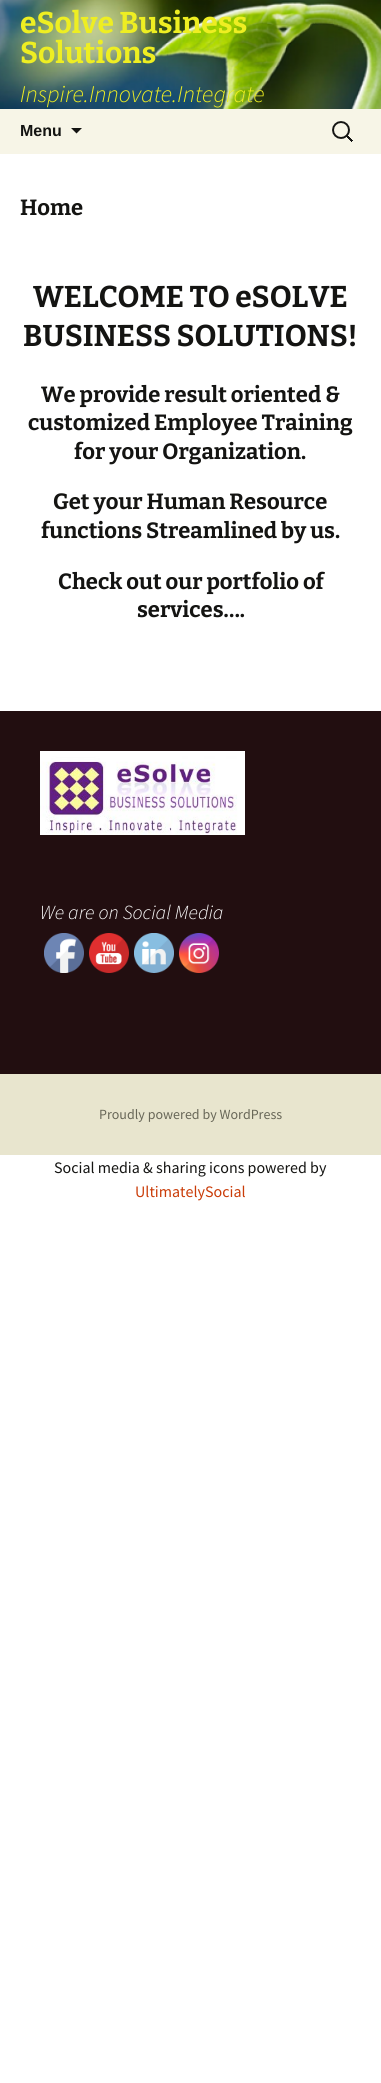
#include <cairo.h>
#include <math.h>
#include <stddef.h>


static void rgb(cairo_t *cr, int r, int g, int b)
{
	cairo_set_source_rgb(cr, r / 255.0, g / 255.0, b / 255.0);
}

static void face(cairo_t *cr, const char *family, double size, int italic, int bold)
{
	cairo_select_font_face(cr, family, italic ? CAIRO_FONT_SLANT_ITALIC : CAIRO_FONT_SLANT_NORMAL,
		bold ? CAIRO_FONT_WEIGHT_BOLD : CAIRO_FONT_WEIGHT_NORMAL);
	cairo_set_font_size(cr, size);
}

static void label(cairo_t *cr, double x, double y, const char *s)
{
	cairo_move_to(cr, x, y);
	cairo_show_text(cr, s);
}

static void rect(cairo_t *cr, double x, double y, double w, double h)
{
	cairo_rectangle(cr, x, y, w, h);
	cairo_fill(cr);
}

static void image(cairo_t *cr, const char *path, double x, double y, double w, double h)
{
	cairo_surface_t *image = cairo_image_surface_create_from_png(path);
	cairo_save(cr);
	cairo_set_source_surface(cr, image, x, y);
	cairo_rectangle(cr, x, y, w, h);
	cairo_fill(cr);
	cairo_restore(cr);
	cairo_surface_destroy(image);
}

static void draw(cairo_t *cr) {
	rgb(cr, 255, 255, 255);
	cairo_paint(cr);
	image(cr, "image0.png", 0, 0, 381, 109);
	face(cr, "Bitter", 30, 0, 1);
	rgb(cr, 238, 238, 34);
	label(cr, 20, 33, "eSolve Business");
	label(cr, 20, 63, "Solutions");
	face(cr, "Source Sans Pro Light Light", 24, 1, 0);
	label(cr, 20, 102, "Inspire.Innovate.Integrate");
	rgb(cr, 247, 245, 231);
	rect(cr, 0, 109, 381, 45);
	face(cr, "Liberation Sans", 16, 0, 1);
	rgb(cr, 20, 20, 18);
	label(cr, 20, 136, "Menu");
	cairo_new_path(cr);
	cairo_move_to(cr, 71, 128);
	cairo_line_to(cr, 76.5, 133.5);
	cairo_line_to(cr, 82, 128);
	cairo_close_path(cr);
	cairo_fill(cr);
	image(cr, "image1.png", 332, 121, 21, 21);
	face(cr, "Bitter", 22, 0, 1);
	label(cr, 20, 215, "Home");
	face(cr, "Bitter", 30, 0, 1);
	label(cr, 33, 307, "WELCOME TO eSOLVE");
	label(cr, 23, 346, "BUSINESS SOLUTIONS!");
	face(cr, "Bitter", 22, 0, 1);
	label(cr, 41, 402, "We provide result oriented &");
	label(cr, 28, 430, "customized Employee Training");
	label(cr, 74, 459, "for your Organization.");
	label(cr, 53, 509, "Get your Human Resource");
	label(cr, 41, 538, "functions Streamlined by us.");
	label(cr, 58, 589, "Check out our portfolio of");
	label(cr, 137, 617, "services….");
	rgb(cr, 232, 229, 206);
	rect(cr, 0, 1074, 381, 81);
	rgb(cr, 34, 14, 16);
	rect(cr, 0, 711, 381, 363);
	image(cr, "image2.png", 40, 751, 205, 84);
	face(cr, "Source Sans Pro Light Light", 20, 1, 0);
	rgb(cr, 255, 255, 255);
	label(cr, 40, 919, "We are on Social Media");
	image(cr, "image3.png", 44, 933, 40, 40);
	image(cr, "image4.png", 89, 933, 40, 40);
	image(cr, "image5.png", 134, 933, 40, 40);
	image(cr, "image6.png", 179, 933, 40, 40);
	face(cr, "Source Sans Pro", 14, 0, 0);
	rgb(cr, 104, 103, 88);
	label(cr, 99, 1119, "Proudly powered by WordPress");
	face(cr, "Source Sans Pro", 16, 0, 0);
	rgb(cr, 20, 20, 18);
	label(cr, 54, 1173, "Social media & sharing icons powered by");
	rgb(cr, 202, 60, 8);
	label(cr, 135, 1197, "UltimatelySocial");
}

int main(void) {
	cairo_surface_t *surface = cairo_image_surface_create(CAIRO_FORMAT_RGB24, 381, 2083);
	cairo_t *cr = cairo_create(surface);
	cairo_font_options_t *options = cairo_font_options_create();
	cairo_font_options_set_hint_metrics(options, CAIRO_HINT_METRICS_OFF);
	cairo_font_options_set_hint_style(options, CAIRO_HINT_STYLE_NONE);
	cairo_set_font_options(cr, options);
	cairo_set_miter_limit(cr, 4);
	draw(cr);
	cairo_surface_write_to_png(surface, "render.png");
	cairo_font_options_destroy(options);
	cairo_destroy(cr);
	cairo_surface_destroy(surface);
	return 0;
}
